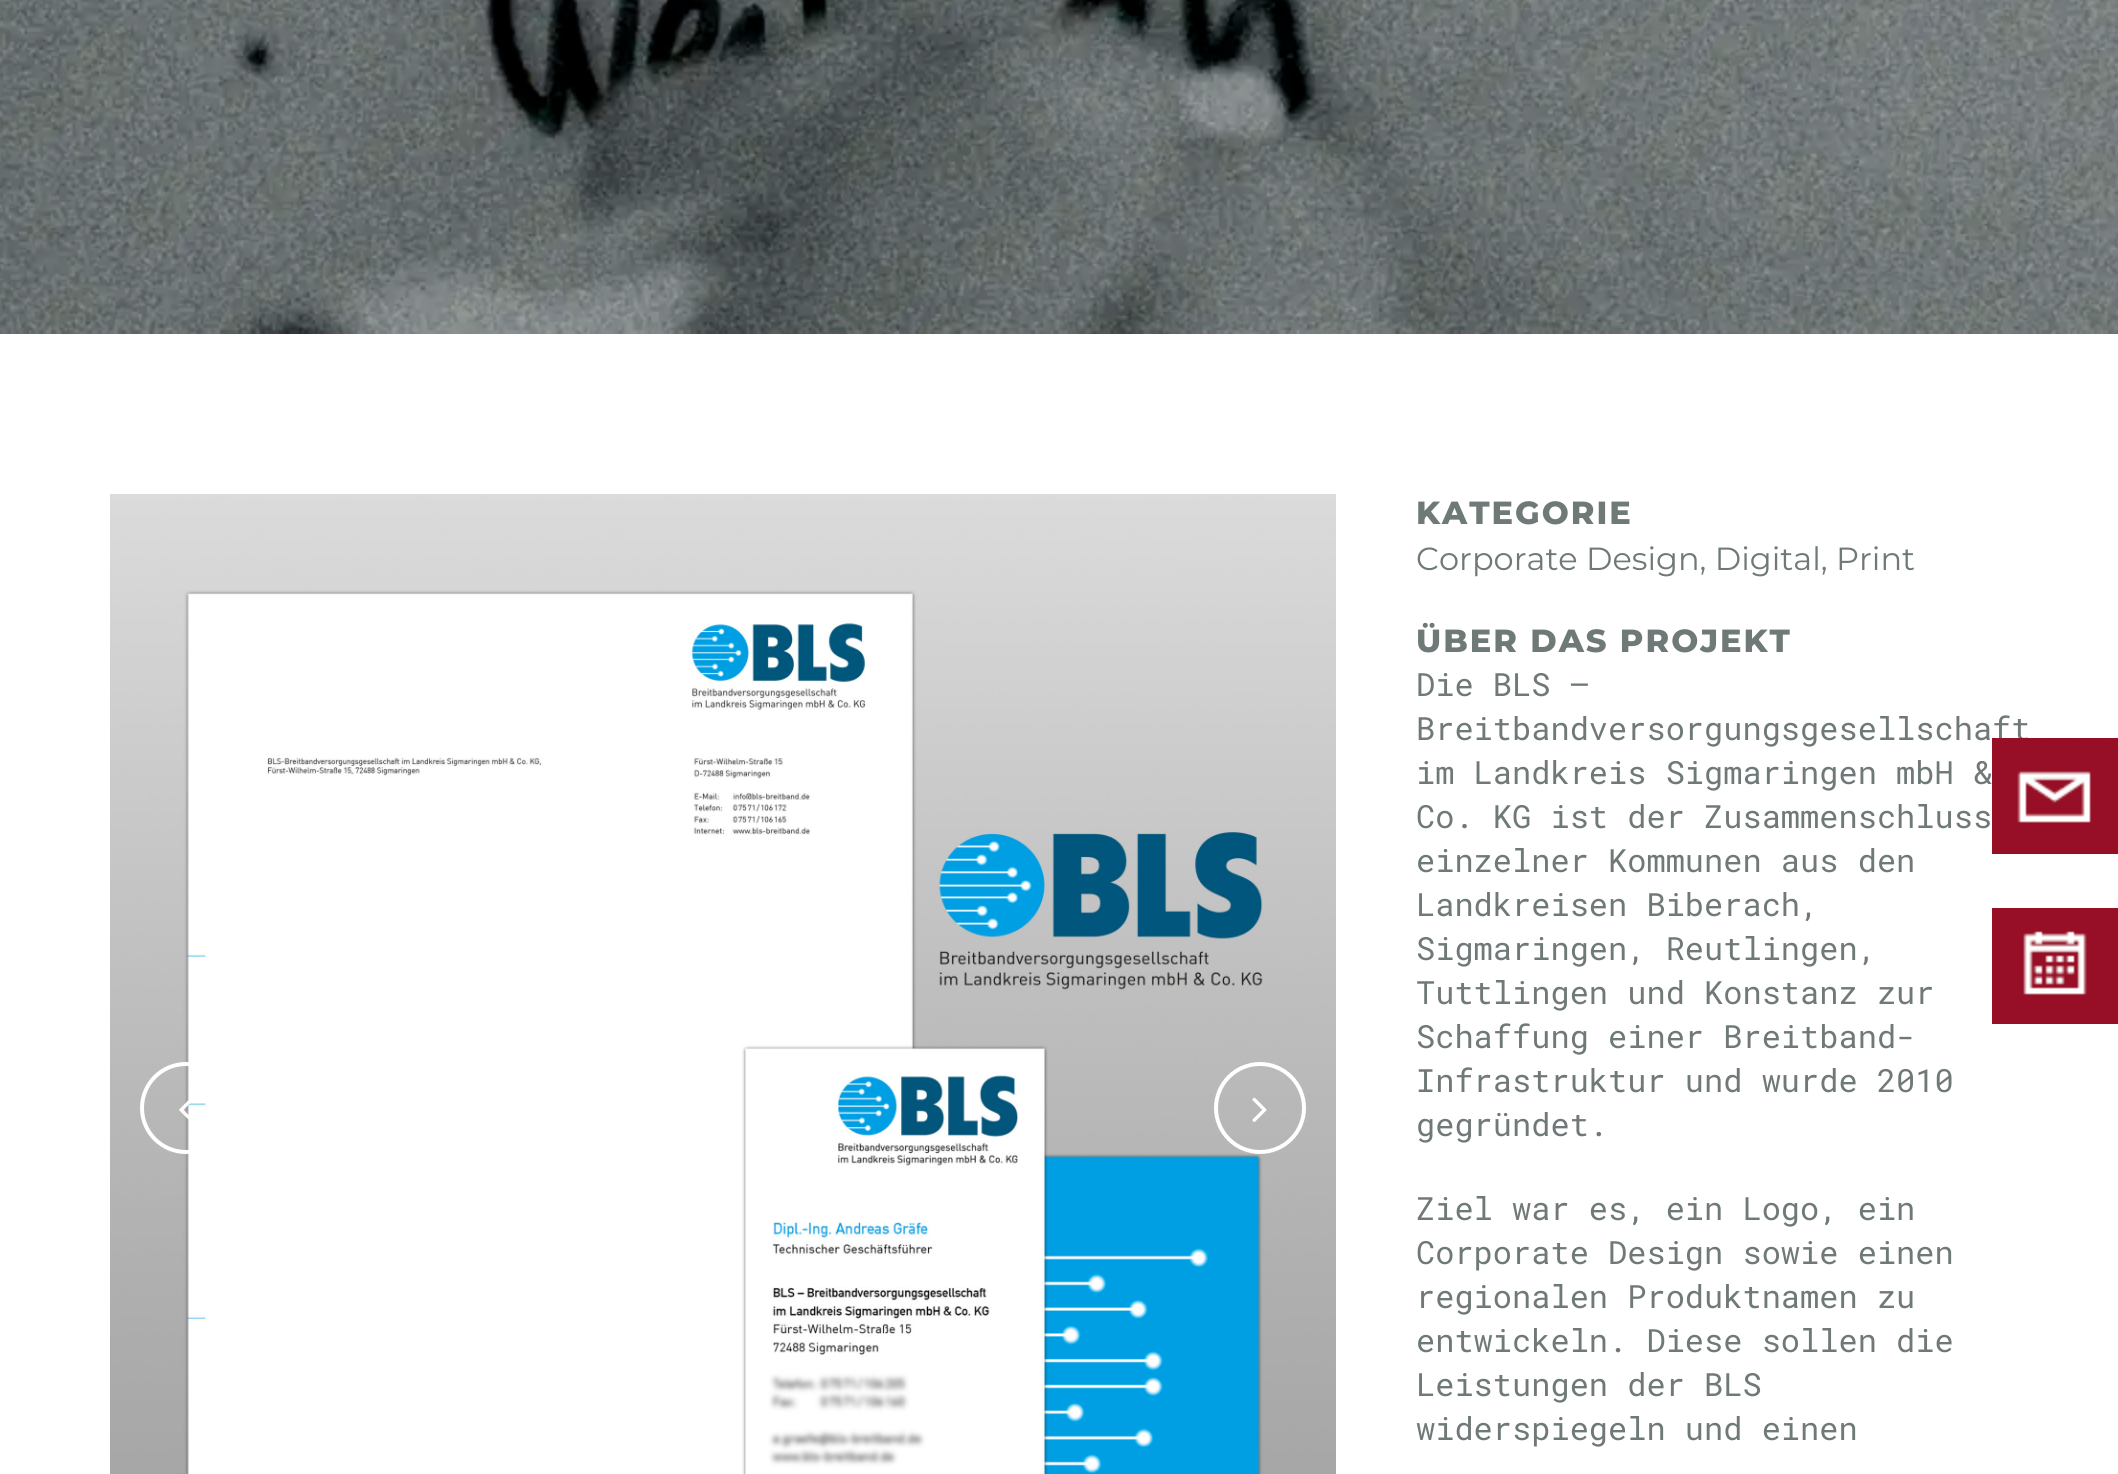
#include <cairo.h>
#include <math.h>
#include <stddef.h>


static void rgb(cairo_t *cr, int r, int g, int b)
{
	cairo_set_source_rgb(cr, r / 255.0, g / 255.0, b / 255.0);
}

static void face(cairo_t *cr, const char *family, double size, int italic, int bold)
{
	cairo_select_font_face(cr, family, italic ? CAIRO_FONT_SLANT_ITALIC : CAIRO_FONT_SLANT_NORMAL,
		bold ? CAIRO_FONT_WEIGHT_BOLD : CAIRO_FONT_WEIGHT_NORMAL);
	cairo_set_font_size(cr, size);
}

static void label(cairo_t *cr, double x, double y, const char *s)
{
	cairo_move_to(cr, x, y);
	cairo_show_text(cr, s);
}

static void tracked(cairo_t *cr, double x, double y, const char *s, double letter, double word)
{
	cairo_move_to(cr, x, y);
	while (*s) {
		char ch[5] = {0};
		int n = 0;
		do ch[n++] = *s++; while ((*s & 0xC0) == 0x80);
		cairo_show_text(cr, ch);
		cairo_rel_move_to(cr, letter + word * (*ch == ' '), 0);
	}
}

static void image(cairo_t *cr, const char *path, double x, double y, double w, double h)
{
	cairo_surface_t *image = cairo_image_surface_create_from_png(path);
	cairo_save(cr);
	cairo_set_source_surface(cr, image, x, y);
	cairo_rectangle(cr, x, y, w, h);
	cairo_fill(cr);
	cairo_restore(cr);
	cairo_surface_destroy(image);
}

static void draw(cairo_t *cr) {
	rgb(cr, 255, 255, 255);
	cairo_paint(cr);
	image(cr, "image0.png", 0, 0, 2118, 334);
	image(cr, "image1.png", 110, 494, 1226, 980);
	cairo_arc(cr, 186, 1108, 44, 0, 2 * M_PI);
	rgb(cr, 255, 255, 255);
	cairo_set_line_width(cr, 4);
	cairo_stroke(cr);
	image(cr, "image2.png", 179, 1100, 12, 20);
	cairo_arc(cr, 1260, 1108, 44, 0, 2 * M_PI);
	cairo_stroke(cr);
	image(cr, "image3.png", 1252, 1097, 15, 25);
	face(cr, "Montserrat Thin", 32, 0, 0);
	rgb(cr, 111, 121, 120);
	tracked(cr, 1416, 524, "KATEGORIE", 2, 0);
	face(cr, "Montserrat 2 Thin", 32, 0, 0);
	label(cr, 1416, 570, "Corporate Design, Digital, Print");
	face(cr, "Montserrat Thin", 32, 0, 0);
	tracked(cr, 1416, 652, "ÜBER DAS PROJEKT", 2, 0);
	face(cr, "Roboto Mono", 32, 0, 0);
	label(cr, 1416, 696, "Die BLS –");
	label(cr, 1416, 740, "Breitbandversorgungsgesellschaft");
	label(cr, 1416, 784, "im Landkreis Sigmaringen mbH &");
	label(cr, 1416, 828, "Co. KG ist der Zusammenschluss");
	label(cr, 1416, 872, "einzelner Kommunen aus den");
	label(cr, 1416, 916, "Landkreisen Biberach,");
	label(cr, 1416, 960, "Sigmaringen, Reutlingen,");
	label(cr, 1416, 1004, "Tuttlingen und Konstanz zur");
	label(cr, 1416, 1048, "Schaffung einer Breitband-");
	label(cr, 1416, 1092, "Infrastruktur und wurde 2010");
	label(cr, 1416, 1136, "gegründet.");
	label(cr, 1416, 1220, "Ziel war es, ein Logo, ein");
	label(cr, 1416, 1264, "Corporate Design sowie einen");
	label(cr, 1416, 1308, "regionalen Produktnamen zu");
	label(cr, 1416, 1352, "entwickeln. Diese sollen die");
	label(cr, 1416, 1396, "Leistungen der BLS");
	label(cr, 1416, 1440, "widerspiegeln und einen");
	image(cr, "image4.png", 1992, 738, 126, 116);
	image(cr, "image5.png", 1992, 908, 126, 116);
}

int main(void) {
	cairo_surface_t *surface = cairo_image_surface_create(CAIRO_FORMAT_RGB24, 2118, 1474);
	cairo_t *cr = cairo_create(surface);
	cairo_font_options_t *options = cairo_font_options_create();
	cairo_font_options_set_hint_metrics(options, CAIRO_HINT_METRICS_OFF);
	cairo_font_options_set_hint_style(options, CAIRO_HINT_STYLE_NONE);
	cairo_set_font_options(cr, options);
	cairo_set_miter_limit(cr, 4);
	draw(cr);
	cairo_surface_write_to_png(surface, "render.png");
	cairo_font_options_destroy(options);
	cairo_destroy(cr);
	cairo_surface_destroy(surface);
	return 0;
}
